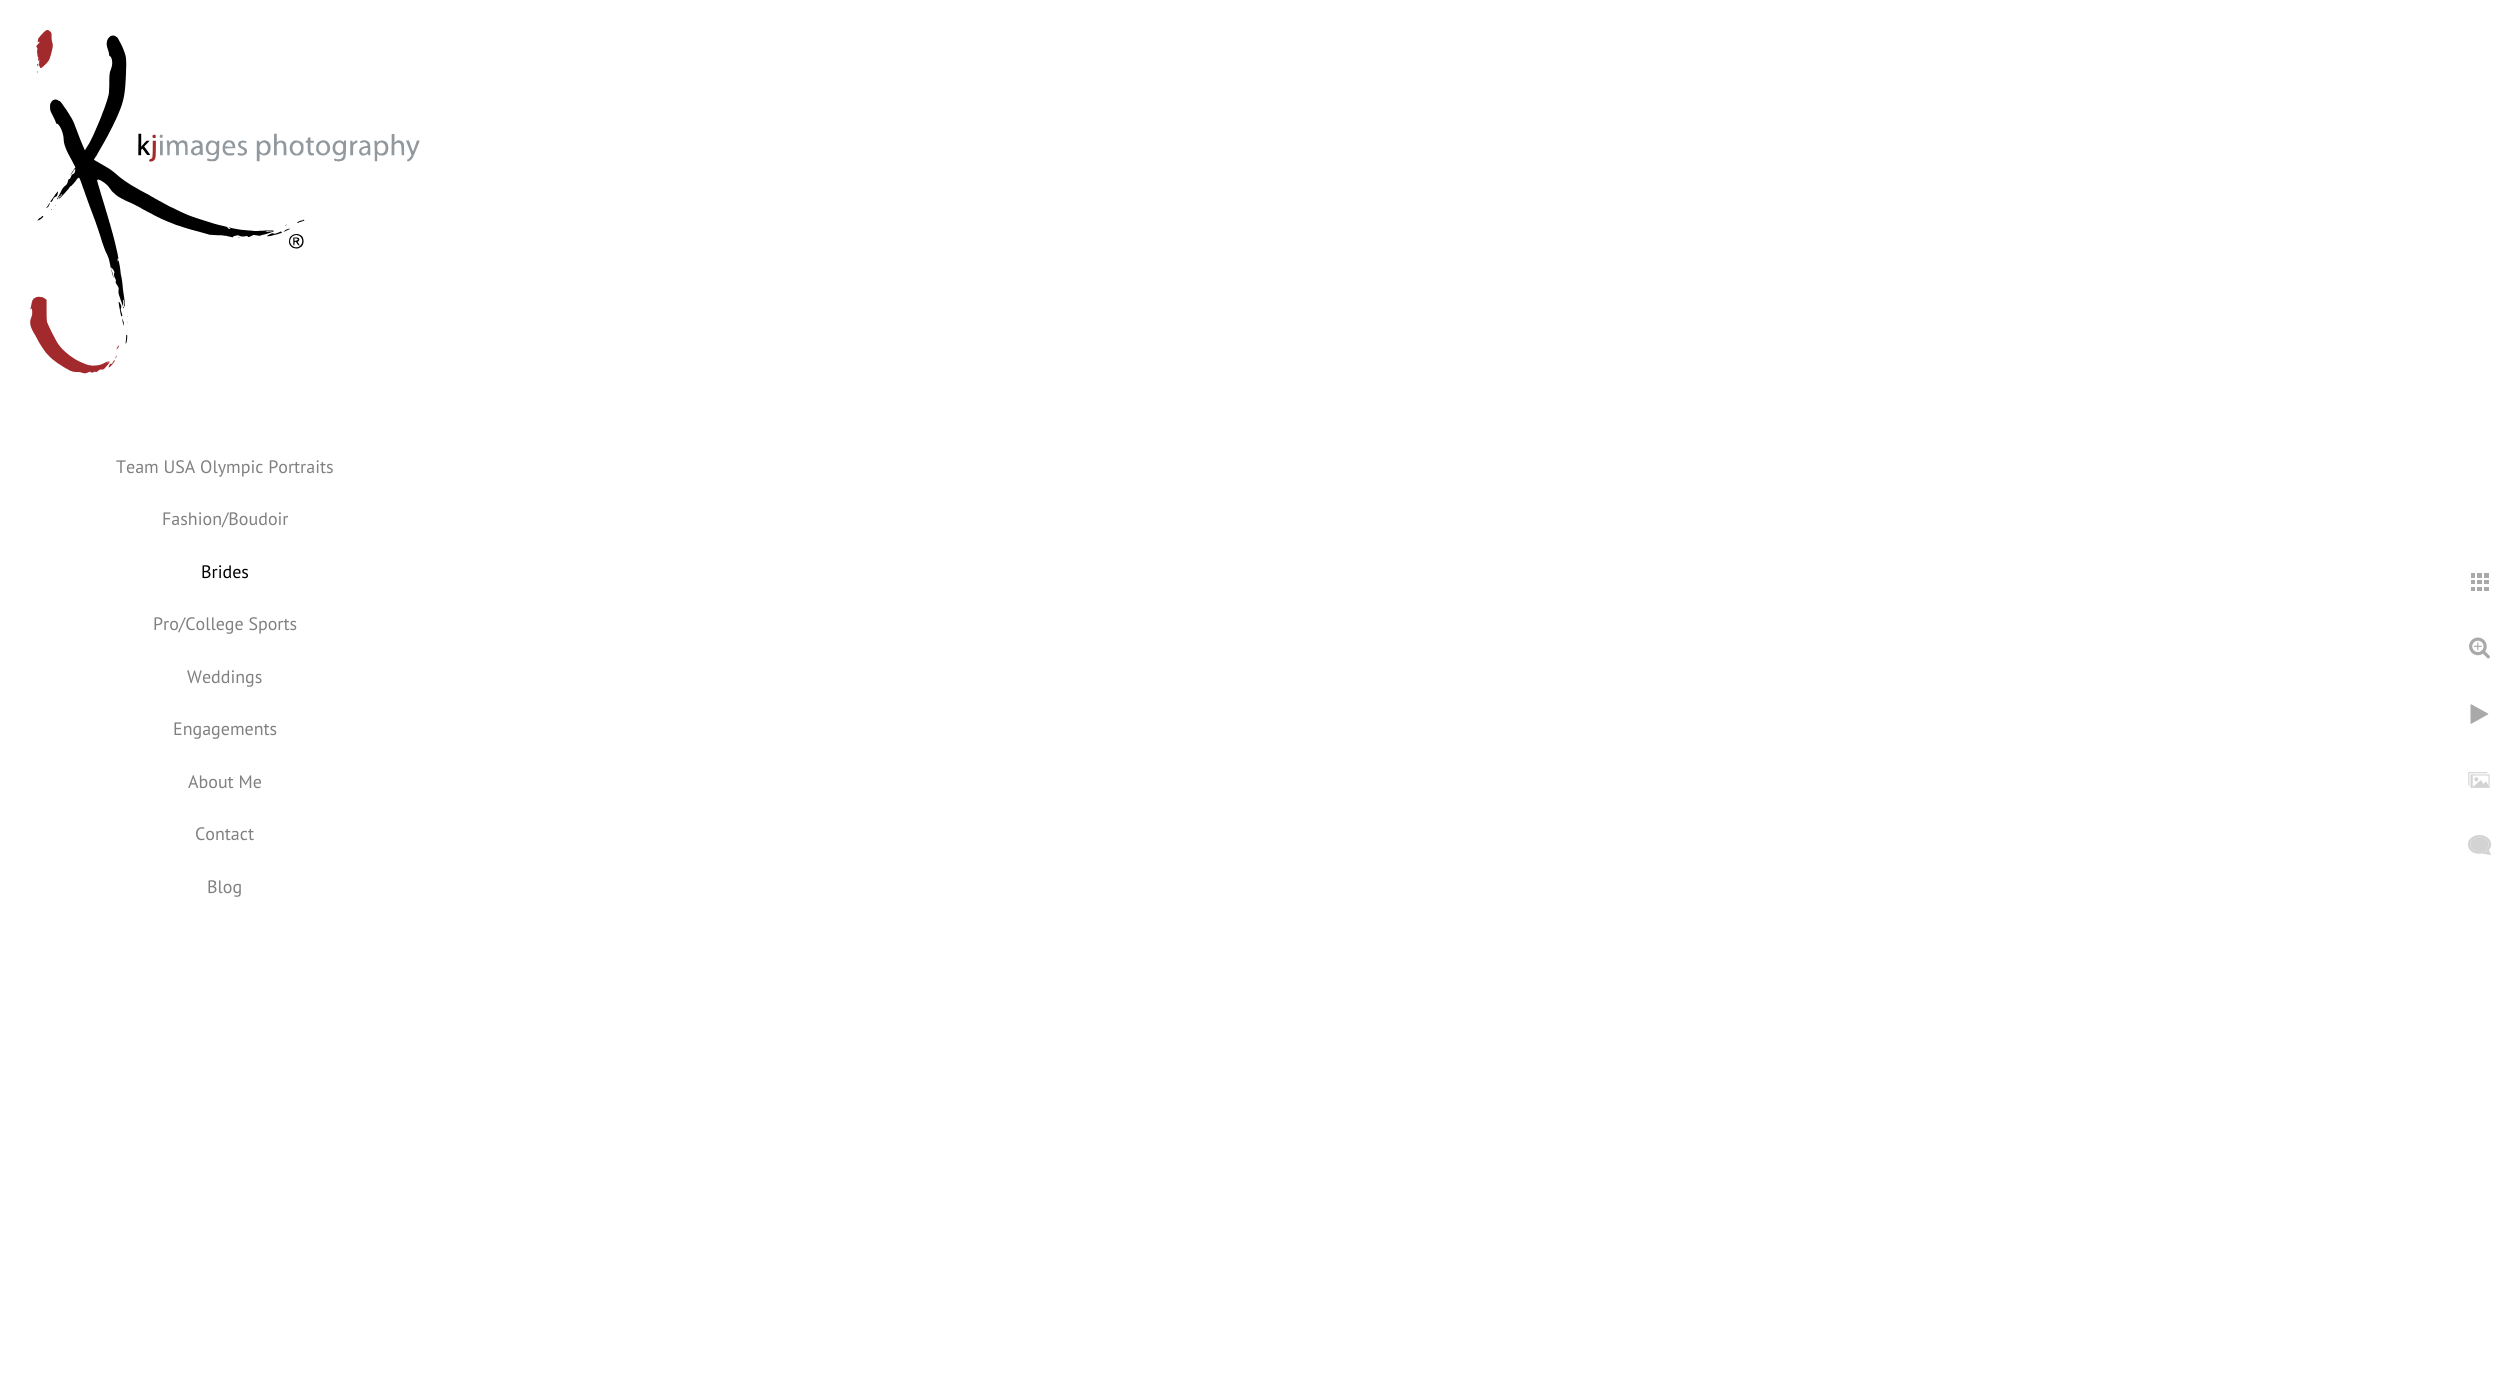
#include <cairo.h>
#include <math.h>
#include <stddef.h>


static void rgb(cairo_t *cr, int r, int g, int b)
{
	cairo_set_source_rgb(cr, r / 255.0, g / 255.0, b / 255.0);
}

static void face(cairo_t *cr, const char *family, double size, int italic, int bold)
{
	cairo_select_font_face(cr, family, italic ? CAIRO_FONT_SLANT_ITALIC : CAIRO_FONT_SLANT_NORMAL,
		bold ? CAIRO_FONT_WEIGHT_BOLD : CAIRO_FONT_WEIGHT_NORMAL);
	cairo_set_font_size(cr, size);
}

static void label(cairo_t *cr, double x, double y, const char *s)
{
	cairo_move_to(cr, x, y);
	cairo_show_text(cr, s);
}

static void image(cairo_t *cr, const char *path, double x, double y, double w, double h)
{
	cairo_surface_t *image = cairo_image_surface_create_from_png(path);
	cairo_save(cr);
	cairo_set_source_surface(cr, image, x, y);
	cairo_rectangle(cr, x, y, w, h);
	cairo_fill(cr);
	cairo_restore(cr);
	cairo_surface_destroy(image);
}

static void draw(cairo_t *cr) {
	rgb(cr, 255, 255, 255);
	cairo_paint(cr);
	image(cr, "image0.png", 30, 30, 390, 344);
	face(cr, "PT Sans", 18, 0, 0);
	rgb(cr, 128, 128, 128);
	label(cr, 116, 473, "Team USA Olympic Portraits");
	label(cr, 162, 525, "Fashion/Boudoir");
	rgb(cr, 0, 0, 0);
	label(cr, 201, 578, "Brides");
	rgb(cr, 128, 128, 128);
	label(cr, 153, 630, "Pro/College Sports");
	label(cr, 187, 683, "Weddings");
	label(cr, 173, 735, "Engagements");
	label(cr, 188, 788, "About Me");
	label(cr, 195, 840, "Contact");
	label(cr, 207, 893, "Blog");
	image(cr, "image1.png", 2471, 573, 18, 18);
	image(cr, "image2.png", 2469, 637, 21, 22);
	image(cr, "image3.png", 2470, 704, 19, 20);
	image(cr, "image4.png", 2468, 772, 22, 16);
	image(cr, "image5.png", 2467, 835, 25, 21);
}

int main(void) {
	cairo_surface_t *surface = cairo_image_surface_create(CAIRO_FORMAT_RGB24, 2520, 1396);
	cairo_t *cr = cairo_create(surface);
	cairo_font_options_t *options = cairo_font_options_create();
	cairo_font_options_set_hint_metrics(options, CAIRO_HINT_METRICS_OFF);
	cairo_font_options_set_hint_style(options, CAIRO_HINT_STYLE_NONE);
	cairo_set_font_options(cr, options);
	cairo_set_miter_limit(cr, 4);
	draw(cr);
	cairo_surface_write_to_png(surface, "render.png");
	cairo_font_options_destroy(options);
	cairo_destroy(cr);
	cairo_surface_destroy(surface);
	return 0;
}
